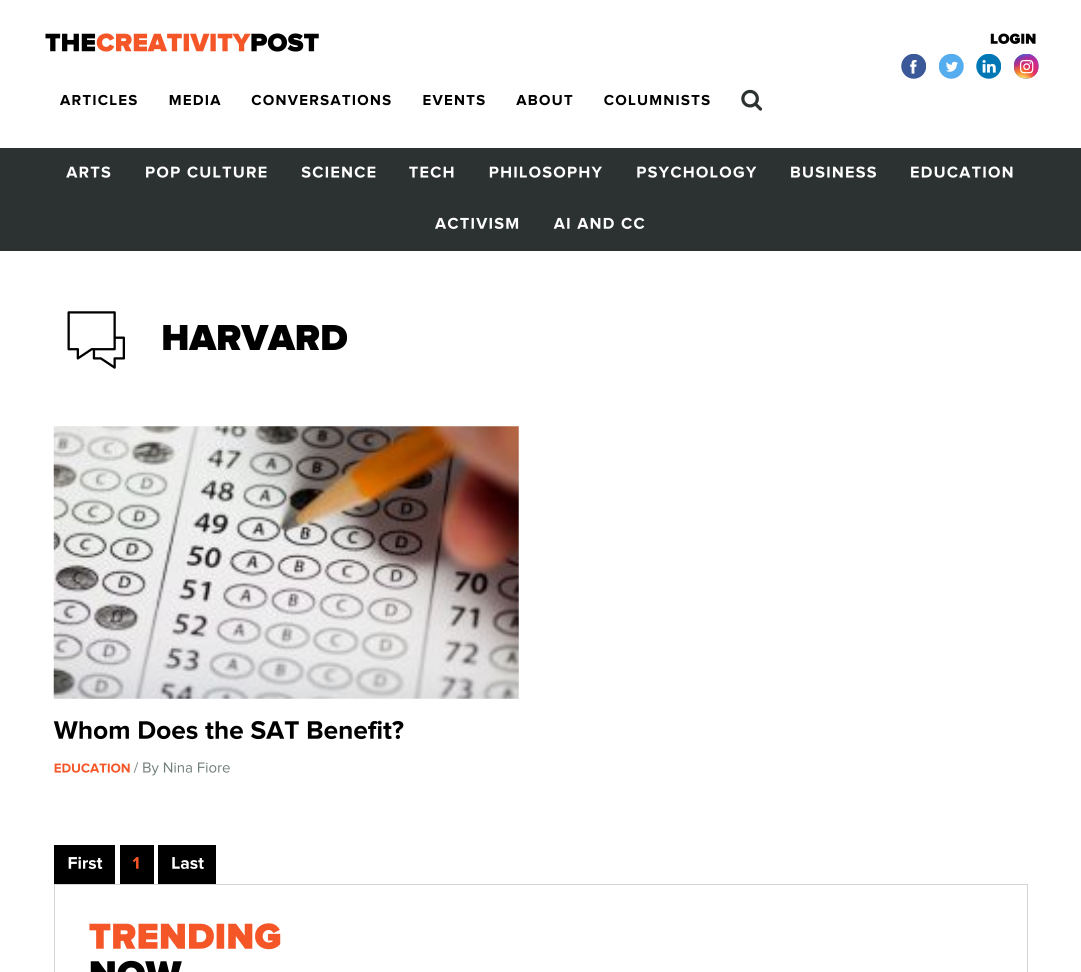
#include <cairo.h>
#include <math.h>
#include <stddef.h>


static void rgb(cairo_t *cr, int r, int g, int b)
{
	cairo_set_source_rgb(cr, r / 255.0, g / 255.0, b / 255.0);
}

static void rect(cairo_t *cr, double x, double y, double w, double h)
{
	cairo_rectangle(cr, x, y, w, h);
	cairo_fill(cr);
}

static void image(cairo_t *cr, const char *path, double x, double y, double w, double h)
{
	cairo_surface_t *image = cairo_image_surface_create_from_png(path);
	cairo_save(cr);
	cairo_set_source_surface(cr, image, x, y);
	cairo_rectangle(cr, x, y, w, h);
	cairo_fill(cr);
	cairo_restore(cr);
	cairo_surface_destroy(image);
}

static void draw(cairo_t *cr) {
	rgb(cr, 255, 255, 255);
	cairo_paint(cr);
	image(cr, "image0.png", 45, 33, 51, 19);
	image(cr, "image1.png", 96, 33, 155, 19);
	image(cr, "image2.png", 251, 33, 68, 19);
	image(cr, "image3.png", 60, 94, 77, 12);
	image(cr, "image4.png", 169, 95, 52, 10);
	image(cr, "image5.png", 251, 94, 140, 12);
	image(cr, "image6.png", 423, 94, 62, 12);
	image(cr, "image7.png", 516, 94, 57, 12);
	image(cr, "image8.png", 604, 94, 106, 12);
	image(cr, "image9.png", 741, 89, 22, 22);
	image(cr, "image10.png", 990, 33, 46, 11);
	image(cr, "image11.png", 901, 54, 25, 25);
	image(cr, "image12.png", 939, 54, 25, 25);
	image(cr, "image13.png", 976, 54, 25, 25);
	image(cr, "image14.png", 1014, 54, 25, 25);
	rgb(cr, 44, 50, 49);
	rect(cr, 0, 148, 1081, 103);
	image(cr, "image15.png", 66, 166, 45, 12);
	image(cr, "image16.png", 146, 166, 121, 12);
	image(cr, "image17.png", 301, 166, 75, 12);
	image(cr, "image18.png", 409, 166, 45, 12);
	image(cr, "image19.png", 489, 166, 113, 12);
	image(cr, "image20.png", 637, 166, 120, 12);
	image(cr, "image21.png", 791, 166, 85, 12);
	image(cr, "image22.png", 911, 166, 102, 12);
	image(cr, "image23.png", 435, 217, 84, 12);
	image(cr, "image24.png", 553, 217, 92, 12);
	image(cr, "image25.png", 67, 311, 58, 58);
	image(cr, "image26.png", 163, 325, 185, 25);
	image(cr, "image27.png", 53, 426, 466, 273);
	image(cr, "image28.png", 53, 720, 351, 20);
	image(cr, "image29.png", 54, 763, 76, 10);
	image(cr, "image30.png", 133, 762, 97, 14);
	rgb(cr, 0, 0, 0);
	rect(cr, 54, 845, 61, 39);
	image(cr, "image31.png", 68, 856, 35, 13);
	rect(cr, 120, 845, 34, 39);
	image(cr, "image32.png", 132, 857, 7, 12);
	rect(cr, 158, 845, 58, 39);
	image(cr, "image33.png", 172, 857, 32, 12);
	cairo_rectangle(cr, 54.5, 884.5, 973, 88);
	rgb(cr, 212, 212, 212);
	cairo_set_line_width(cr, 1);
	cairo_stroke(cr);
	image(cr, "image34.png", 89, 923, 192, 27);
	image(cr, "image35.png", 90, 960, 92, 12);
}

int main(void) {
	cairo_surface_t *surface = cairo_image_surface_create(CAIRO_FORMAT_RGB24, 1081, 972);
	cairo_t *cr = cairo_create(surface);
	cairo_font_options_t *options = cairo_font_options_create();
	cairo_font_options_set_hint_metrics(options, CAIRO_HINT_METRICS_OFF);
	cairo_font_options_set_hint_style(options, CAIRO_HINT_STYLE_NONE);
	cairo_set_font_options(cr, options);
	cairo_set_miter_limit(cr, 4);
	draw(cr);
	cairo_surface_write_to_png(surface, "render.png");
	cairo_font_options_destroy(options);
	cairo_destroy(cr);
	cairo_surface_destroy(surface);
	return 0;
}
